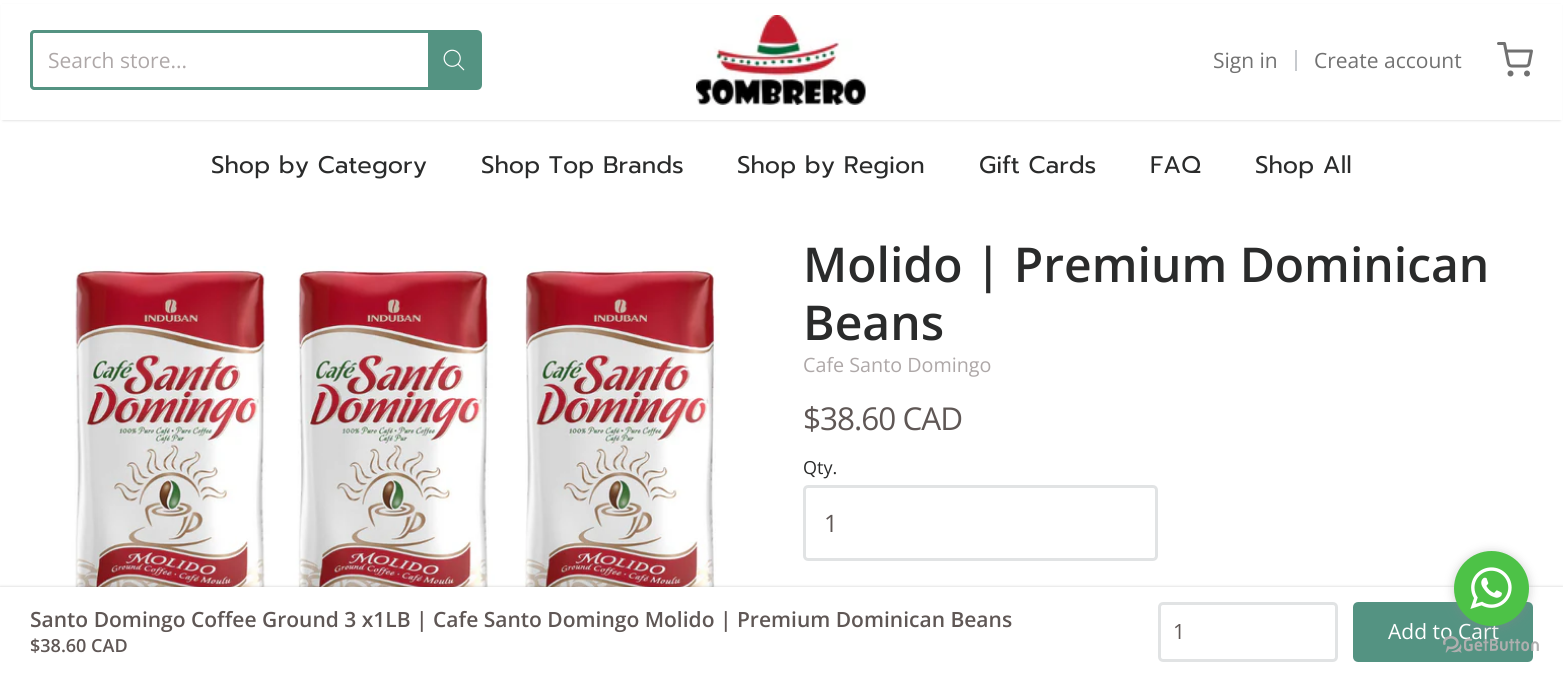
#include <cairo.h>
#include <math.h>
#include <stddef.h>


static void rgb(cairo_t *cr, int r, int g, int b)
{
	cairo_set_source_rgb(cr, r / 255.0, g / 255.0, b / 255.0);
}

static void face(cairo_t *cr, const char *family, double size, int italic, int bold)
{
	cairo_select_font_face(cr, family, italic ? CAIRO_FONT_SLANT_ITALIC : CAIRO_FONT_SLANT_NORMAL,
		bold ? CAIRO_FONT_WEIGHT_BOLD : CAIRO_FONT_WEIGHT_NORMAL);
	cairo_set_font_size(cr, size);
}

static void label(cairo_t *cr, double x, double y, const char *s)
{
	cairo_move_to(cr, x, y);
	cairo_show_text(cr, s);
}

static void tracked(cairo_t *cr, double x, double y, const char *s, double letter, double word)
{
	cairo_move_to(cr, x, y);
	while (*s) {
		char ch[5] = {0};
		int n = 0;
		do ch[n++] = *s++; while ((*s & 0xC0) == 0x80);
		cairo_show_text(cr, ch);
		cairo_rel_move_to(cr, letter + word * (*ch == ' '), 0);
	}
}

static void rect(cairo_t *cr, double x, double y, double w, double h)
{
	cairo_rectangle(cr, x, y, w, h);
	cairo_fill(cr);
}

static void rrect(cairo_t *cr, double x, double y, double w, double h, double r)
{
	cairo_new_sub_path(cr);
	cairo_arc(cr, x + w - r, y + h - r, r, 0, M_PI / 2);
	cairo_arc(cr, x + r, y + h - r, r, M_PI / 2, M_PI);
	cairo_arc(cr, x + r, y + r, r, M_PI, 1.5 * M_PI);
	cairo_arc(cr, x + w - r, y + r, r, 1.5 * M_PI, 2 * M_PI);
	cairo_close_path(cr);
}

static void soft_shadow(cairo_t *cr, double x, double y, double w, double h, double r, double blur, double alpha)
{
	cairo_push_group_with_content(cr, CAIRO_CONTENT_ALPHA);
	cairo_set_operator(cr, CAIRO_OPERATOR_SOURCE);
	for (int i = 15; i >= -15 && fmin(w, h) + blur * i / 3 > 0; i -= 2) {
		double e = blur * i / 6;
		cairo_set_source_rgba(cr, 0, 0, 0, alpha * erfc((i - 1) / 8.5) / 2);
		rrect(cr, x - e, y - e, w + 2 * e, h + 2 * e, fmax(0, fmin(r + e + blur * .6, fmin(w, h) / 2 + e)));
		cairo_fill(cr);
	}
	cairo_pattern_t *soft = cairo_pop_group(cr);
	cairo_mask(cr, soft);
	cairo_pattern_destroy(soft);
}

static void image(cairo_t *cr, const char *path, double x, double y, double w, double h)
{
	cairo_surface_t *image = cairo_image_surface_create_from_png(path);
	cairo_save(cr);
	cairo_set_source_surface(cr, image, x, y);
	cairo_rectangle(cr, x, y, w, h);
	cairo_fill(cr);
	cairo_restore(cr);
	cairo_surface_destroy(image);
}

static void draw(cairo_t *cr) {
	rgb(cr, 255, 255, 255);
	cairo_paint(cr);
	rgb(cr, 0, 0, 0);
	soft_shadow(cr, 3, 6, 1557, 114, 0, 1.5, 0.2);
	rgb(cr, 255, 255, 255);
	rect(cr, 1, 4, 1561, 116);
	rgb(cr, 84, 147, 130);
	cairo_set_fill_rule(cr, CAIRO_FILL_RULE_EVEN_ODD);
	cairo_new_path(cr);
	cairo_move_to(cr, 34, 30);
	cairo_line_to(cr, 428, 30);
	cairo_line_to(cr, 428, 90);
	cairo_line_to(cr, 34, 90);
	cairo_curve_to(cr, 32, 90, 30, 88, 30, 86);
	cairo_line_to(cr, 30, 34);
	cairo_curve_to(cr, 30, 32, 32, 30, 34, 30);
	cairo_close_path(cr);
	cairo_move_to(cr, 34, 33);
	cairo_line_to(cr, 428, 33);
	cairo_line_to(cr, 428, 87);
	cairo_line_to(cr, 34, 87);
	cairo_curve_to(cr, 34, 87, 33, 86, 33, 86);
	cairo_line_to(cr, 33, 34);
	cairo_curve_to(cr, 33, 34, 34, 33, 34, 33);
	cairo_close_path(cr);
	cairo_fill(cr);
	face(cr, "Open Sans", 21, 0, 0);
	rgb(cr, 174, 168, 168);
	label(cr, 48, 68, "Search store...");
	rgb(cr, 84, 147, 130);
	cairo_new_path(cr);
	cairo_move_to(cr, 429.5, 31.5);
	cairo_line_to(cr, 477, 31.5);
	cairo_curve_to(cr, 479, 31.5, 480.5, 33, 480.5, 35);
	cairo_line_to(cr, 480.5, 85);
	cairo_curve_to(cr, 480.5, 87, 479, 88.5, 477, 88.5);
	cairo_line_to(cr, 429.5, 88.5);
	cairo_close_path(cr);
	cairo_fill_preserve(cr);
	cairo_set_line_width(cr, 3);
	cairo_stroke(cr);
	image(cr, "image0.png", 443, 49, 22, 22);
	image(cr, "image1.png", 696, 15, 170, 90);
	rgb(cr, 113, 113, 113);
	label(cr, 1213, 68, "Sign in");
	rgb(cr, 199, 202, 206);
	rect(cr, 1295, 50, 2, 21);
	rgb(cr, 113, 113, 113);
	label(cr, 1314, 68, "Create account");
	cairo_new_path(cr);
	cairo_move_to(cr, 1498.5, 43.5);
	cairo_line_to(cr, 1504.5, 43.5);
	cairo_line_to(cr, 1508.5, 63.5);
	cairo_curve_to(cr, 1509, 65, 1510, 66, 1511.5, 66);
	cairo_line_to(cr, 1526, 66);
	cairo_curve_to(cr, 1527.5, 66, 1529, 65, 1529, 63.5);
	cairo_line_to(cr, 1531.5, 51);
	cairo_line_to(cr, 1506, 51);
	cairo_set_line_cap(cr, CAIRO_LINE_CAP_ROUND);
	cairo_set_line_join(cr, CAIRO_LINE_JOIN_ROUND);
	cairo_stroke(cr);
	cairo_arc(cr, 1510.5, 73.5, 1.5, 0, 2 * M_PI);
	cairo_set_line_cap(cr, CAIRO_LINE_CAP_BUTT);
	cairo_set_line_join(cr, CAIRO_LINE_JOIN_MITER);
	cairo_stroke(cr);
	cairo_arc(cr, 1527, 73.5, 1.5, 0, 2 * M_PI);
	cairo_stroke(cr);
	face(cr, "Prompt", 24, 0, 0);
	rgb(cr, 42, 43, 43);
	label(cr, 211, 173, "Shop by Category");
	label(cr, 481, 173, "Shop Top Brands");
	label(cr, 737, 173, "Shop by Region");
	label(cr, 979, 173, "Gift Cards");
	label(cr, 1150, 173, "FAQ");
	label(cr, 1255, 173, "Shop All");
	image(cr, "image2.png", 71, 266, 649, 321);
	face(cr, "Open Sans SemiBold", 48, 0, 0);
	label(cr, 803, 282, "Molido | Premium Dominican");
	label(cr, 803, 340, "Beans");
	face(cr, "Open Sans", 19.75, 0, 0);
	rgb(cr, 174, 168, 168);
	label(cr, 803, 372, "Cafe Santo Domingo");
	face(cr, "Open Sans", 31.5, 0, 0);
	rgb(cr, 95, 87, 85);
	tracked(cr, 803, 430, "$38.60 CAD", -1, 0);
	face(cr, "Open Sans", 18, 0, 0);
	rgb(cr, 42, 43, 43);
	label(cr, 803, 474, "Qty.");
	rrect(cr, 804.5, 486.5, 352, 73, 3.5);
	rgb(cr, 225, 227, 228);
	cairo_stroke(cr);
	face(cr, "Open Sans", 24, 0, 0);
	rgb(cr, 95, 87, 85);
	label(cr, 824, 532, "1");
	rgb(cr, 0, 0, 0);
	soft_shadow(cr, 0, 587, 1563, 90, 0, 1.5, 0.2);
	rgb(cr, 255, 255, 255);
	rect(cr, 0, 587, 1563, 89);
	face(cr, "Open Sans SemiBold", 21, 0, 0);
	rgb(cr, 95, 87, 85);
	label(cr, 30, 627, "Santo Domingo Coffee Ground 3 x1LB | Cafe Santo Domingo Molido | Premium Dominican Beans");
	face(cr, "Open Sans SemiBold", 18, 0, 0);
	label(cr, 30, 652, "$38.60 CAD");
	rrect(cr, 1159.5, 603.5, 177, 57, 3.5);
	rgb(cr, 225, 227, 228);
	cairo_stroke(cr);
	face(cr, "Open Sans", 21, 0, 0);
	rgb(cr, 95, 87, 85);
	label(cr, 1173, 639, "1");
	rgb(cr, 84, 147, 130);
	rrect(cr, 1354.5, 603.5, 177, 57, 3.5);
	cairo_fill_preserve(cr);
	cairo_stroke(cr);
	rgb(cr, 255, 255, 255);
	label(cr, 1388, 639, "Add to Cart");
	image(cr, "image4.png", 1443, 636, 96, 17);
	rgb(cr, 136, 136, 136);
	soft_shadow(cr, 1454, 552, 75, 75, 37.5, 5, 0.4);
	rgb(cr, 77, 194, 71);
	cairo_arc(cr, 1491.5, 588.5, 37.5, 0, 2 * M_PI);
	cairo_fill(cr);
	image(cr, "image3.png", 1470, 567, 42, 42);
}

int main(void) {
	cairo_surface_t *surface = cairo_image_surface_create(CAIRO_FORMAT_RGB24, 1563, 676);
	cairo_t *cr = cairo_create(surface);
	cairo_font_options_t *options = cairo_font_options_create();
	cairo_font_options_set_hint_metrics(options, CAIRO_HINT_METRICS_OFF);
	cairo_font_options_set_hint_style(options, CAIRO_HINT_STYLE_NONE);
	cairo_set_font_options(cr, options);
	cairo_set_miter_limit(cr, 4);
	draw(cr);
	cairo_surface_write_to_png(surface, "render.png");
	cairo_font_options_destroy(options);
	cairo_destroy(cr);
	cairo_surface_destroy(surface);
	return 0;
}
